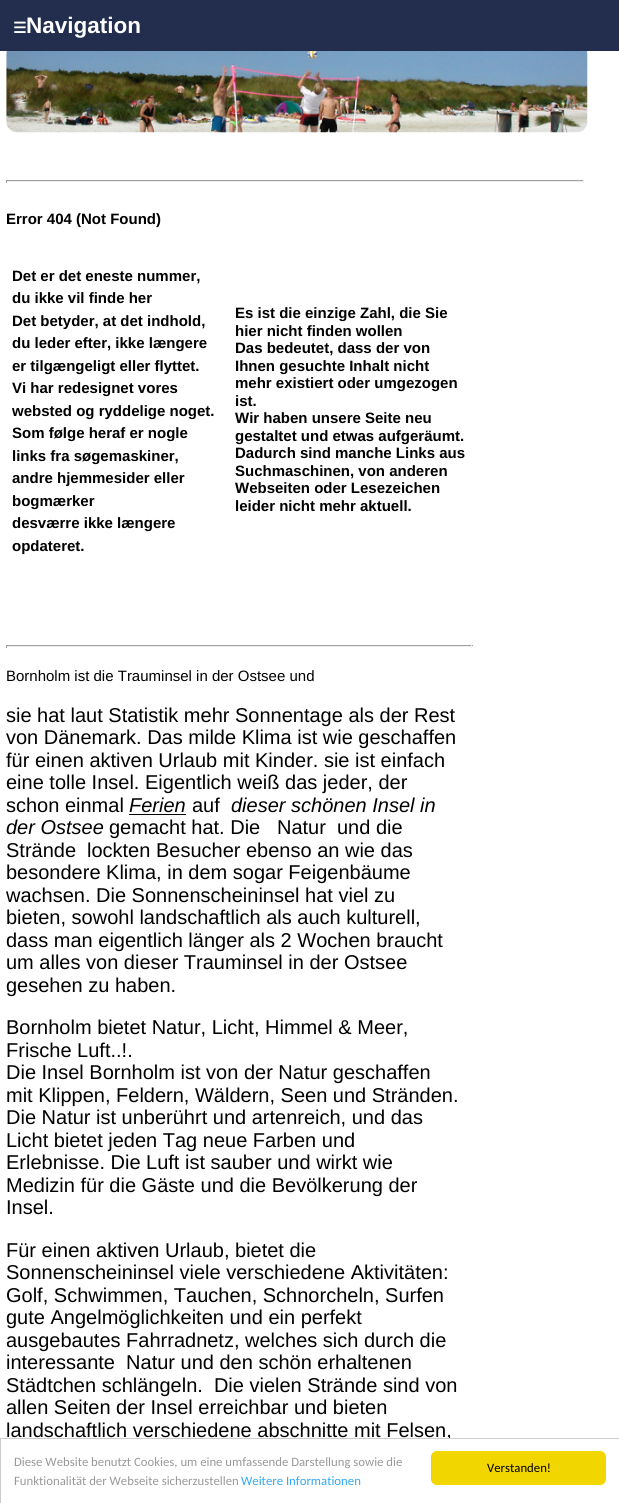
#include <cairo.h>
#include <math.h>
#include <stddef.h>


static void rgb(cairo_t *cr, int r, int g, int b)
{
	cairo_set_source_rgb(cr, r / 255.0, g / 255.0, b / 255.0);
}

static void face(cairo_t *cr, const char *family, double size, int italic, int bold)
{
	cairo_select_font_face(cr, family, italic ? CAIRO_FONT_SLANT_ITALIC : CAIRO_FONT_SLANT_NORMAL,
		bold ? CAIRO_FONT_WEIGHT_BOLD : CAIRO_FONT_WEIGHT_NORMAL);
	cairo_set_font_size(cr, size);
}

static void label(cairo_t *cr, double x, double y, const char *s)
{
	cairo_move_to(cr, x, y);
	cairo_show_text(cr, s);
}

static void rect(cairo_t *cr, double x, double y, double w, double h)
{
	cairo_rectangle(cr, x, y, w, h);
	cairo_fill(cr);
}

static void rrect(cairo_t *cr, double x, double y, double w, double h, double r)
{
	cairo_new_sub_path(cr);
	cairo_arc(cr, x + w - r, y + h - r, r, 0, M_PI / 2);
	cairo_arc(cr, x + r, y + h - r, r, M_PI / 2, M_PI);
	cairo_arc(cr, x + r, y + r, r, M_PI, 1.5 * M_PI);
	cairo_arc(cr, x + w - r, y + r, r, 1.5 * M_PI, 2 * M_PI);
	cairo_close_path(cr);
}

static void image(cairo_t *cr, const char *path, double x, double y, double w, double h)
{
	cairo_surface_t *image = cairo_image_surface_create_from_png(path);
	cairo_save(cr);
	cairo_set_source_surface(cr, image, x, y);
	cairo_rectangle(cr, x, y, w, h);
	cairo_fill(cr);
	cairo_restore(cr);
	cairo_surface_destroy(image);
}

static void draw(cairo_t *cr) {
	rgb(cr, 255, 255, 255);
	cairo_paint(cr);
	rgb(cr, 35, 45, 77);
	rect(cr, 0, 0, 619, 51);
	face(cr, "DejaVu Sans", 15, 0, 1);
	rgb(cr, 255, 255, 255);
	label(cr, 13, 33, "☰");
	face(cr, "Liberation Sans", 22.5, 0, 1);
	label(cr, 26, 33, "Navigation");
	image(cr, "image0.png", 6, 51, 582, 82);
	rgb(cr, 159, 159, 159);
	rect(cr, 6, 180, 578, 1);
	rgb(cr, 238, 238, 238);
	rect(cr, 583, 180, 1, 3);
	rect(cr, 6, 181, 578, 1);
	rgb(cr, 159, 159, 159);
	rect(cr, 6, 180, 1, 3);
	face(cr, "Liberation Sans", 15, 0, 1);
	rgb(cr, 0, 0, 0);
	label(cr, 6, 224, "Error 404 (Not Found)");
	label(cr, 12, 281, "Det er det eneste nummer,");
	label(cr, 12, 303, "du ikke vil finde her");
	label(cr, 12, 326, "Det betyder, at det indhold,");
	label(cr, 12, 348, "du leder efter, ikke længere");
	label(cr, 12, 371, "er tilgængeligt eller flyttet.");
	label(cr, 12, 393, "Vi har redesignet vores");
	label(cr, 12, 416, "websted og ryddelige noget.");
	label(cr, 12, 438, "Som følge heraf er nogle");
	label(cr, 12, 461, "links fra søgemaskiner,");
	label(cr, 12, 483, "andre hjemmesider eller");
	label(cr, 12, 506, "bogmærker");
	label(cr, 12, 528, "desværre ikke længere");
	label(cr, 12, 551, "opdateret.");
	label(cr, 235, 318, "Es ist die einzige Zahl, die Sie");
	label(cr, 235, 336, "hier nicht finden wollen");
	label(cr, 235, 353, "Das bedeutet, dass der von");
	label(cr, 235, 371, "Ihnen gesuchte Inhalt nicht");
	label(cr, 235, 388, "mehr existiert oder umgezogen");
	label(cr, 235, 406, "ist.");
	label(cr, 235, 423, "Wir haben unsere Seite neu");
	label(cr, 235, 441, "gestaltet und etwas aufgeräumt.");
	label(cr, 235, 458, "Dadurch sind manche Links aus");
	label(cr, 235, 476, "Suchmaschinen, von anderen");
	label(cr, 235, 493, "Webseiten oder Lesezeichen");
	label(cr, 235, 511, "leider nicht mehr aktuell.");
	rgb(cr, 159, 159, 159);
	rect(cr, 6, 645, 467, 1);
	rgb(cr, 238, 238, 238);
	rect(cr, 471, 645, 1, 3);
	rect(cr, 6, 646, 467, 1);
	rgb(cr, 159, 159, 159);
	rect(cr, 6, 645, 1, 3);
	face(cr, "Liberation Sans", 15, 0, 0);
	rgb(cr, 0, 0, 0);
	label(cr, 6, 681, "Bornholm ist die Trauminsel in der Ostsee und");
	face(cr, "Liberation Sans", 20, 0, 0);
	label(cr, 6, 722, "sie hat laut Statistik mehr Sonnentage als der Rest");
	label(cr, 6, 744, "von Dänemark. Das milde Klima ist wie geschaffen");
	label(cr, 6, 767, "für einen aktiven Urlaub mit Kinder. sie ist einfach");
	label(cr, 6, 789, "eine tolle Insel. Eigentlich weiß das jeder, der");
	label(cr, 6, 812, "schon einmal");
	face(cr, "Liberation Sans", 20, 1, 0);
	label(cr, 129, 812, "Ferien");
	rect(cr, 129, 814, 57, 1);
	face(cr, "Liberation Sans", 20, 0, 0);
	label(cr, 192, 812, "auf");
	face(cr, "Liberation Sans", 20, 1, 0);
	label(cr, 231, 812, "dieser schönen Insel in");
	label(cr, 6, 834, "der Ostsee");
	face(cr, "Liberation Sans", 20, 0, 0);
	label(cr, 109, 834, "gemacht hat. Die");
	label(cr, 277, 834, "Natur");
	label(cr, 337, 834, "und die");
	label(cr, 6, 857, "Strände");
	label(cr, 87, 857, "lockten Besucher ebenso an wie das");
	label(cr, 6, 879, "besondere Klima, in dem sogar Feigenbäume");
	label(cr, 6, 902, "wachsen. Die Sonnenscheininsel hat viel zu");
	label(cr, 6, 924, "bieten, sowohl landschaftlich als auch kulturell,");
	label(cr, 6, 947, "dass man eigentlich länger als 2 Wochen braucht");
	label(cr, 6, 969, "um alles von dieser Trauminsel in der Ostsee");
	label(cr, 6, 992, "gesehen zu haben.");
	label(cr, 6, 1034, "Bornholm bietet Natur, Licht, Himmel & Meer,");
	label(cr, 6, 1057, "Frische Luft..!.");
	label(cr, 6, 1079, "Die Insel Bornholm ist von der Natur geschaffen");
	label(cr, 6, 1102, "mit Klippen, Feldern, Wäldern, Seen und Stränden.");
	label(cr, 6, 1124, "Die Natur ist unberührt und artenreich, und das");
	label(cr, 6, 1147, "Licht bietet jeden Tag neue Farben und");
	label(cr, 6, 1169, "Erlebnisse. Die Luft ist sauber und wirkt wie");
	label(cr, 6, 1192, "Medizin für die Gäste und die Bevölkerung der");
	label(cr, 6, 1214, "Insel.");
	label(cr, 6, 1257, "Für einen aktiven Urlaub, bietet die");
	label(cr, 6, 1279, "Sonnenscheininsel viele verschiedene Aktivitäten:");
	label(cr, 6, 1302, "Golf, Schwimmen, Tauchen, Schnorcheln, Surfen");
	label(cr, 6, 1324, "gute Angelmöglichkeiten und ein perfekt");
	label(cr, 6, 1347, "ausgebautes Fahrradnetz, welches sich durch die");
	label(cr, 6, 1369, "interessante  Natur und den schön erhaltenen");
	label(cr, 6, 1392, "Städtchen schlängeln.  Die vielen Strände sind von");
	label(cr, 6, 1414, "allen Seiten der Insel erreichbar und bieten");
	label(cr, 6, 1437, "landschaftlich verschiedene abschnitte mit Felsen,");
	rgb(cr, 255, 255, 255);
	rect(cr, 448, 1439, 2, 1);
	cairo_rectangle(cr, 0.5, 1438.5, 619, 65);
	rgb(cr, 204, 204, 204);
	cairo_set_line_width(cr, 1);
	cairo_stroke(cr);
	face(cr, "Carlito", 12.75, 0, 0);
	rgb(cr, 153, 153, 153);
	label(cr, 14, 1466, "Diese Website benutzt Cookies, um eine umfassende Darstellung sowie die");
	label(cr, 14, 1485, "Funktionalität der Webseite sicherzustellen");
	rgb(cr, 49, 168, 240);
	label(cr, 241, 1485, "Weitere Informationen");
	rgb(cr, 241, 214, 0);
	rrect(cr, 431, 1451, 175, 34, 6);
	cairo_fill(cr);
	rgb(cr, 0, 0, 0);
	label(cr, 487, 1472, "Verstanden!");
}

int main(void) {
	cairo_surface_t *surface = cairo_image_surface_create(CAIRO_FORMAT_RGB24, 619, 1503);
	cairo_t *cr = cairo_create(surface);
	cairo_font_options_t *options = cairo_font_options_create();
	cairo_font_options_set_hint_metrics(options, CAIRO_HINT_METRICS_OFF);
	cairo_font_options_set_hint_style(options, CAIRO_HINT_STYLE_NONE);
	cairo_set_font_options(cr, options);
	cairo_set_miter_limit(cr, 4);
	draw(cr);
	cairo_surface_write_to_png(surface, "render.png");
	cairo_font_options_destroy(options);
	cairo_destroy(cr);
	cairo_surface_destroy(surface);
	return 0;
}
